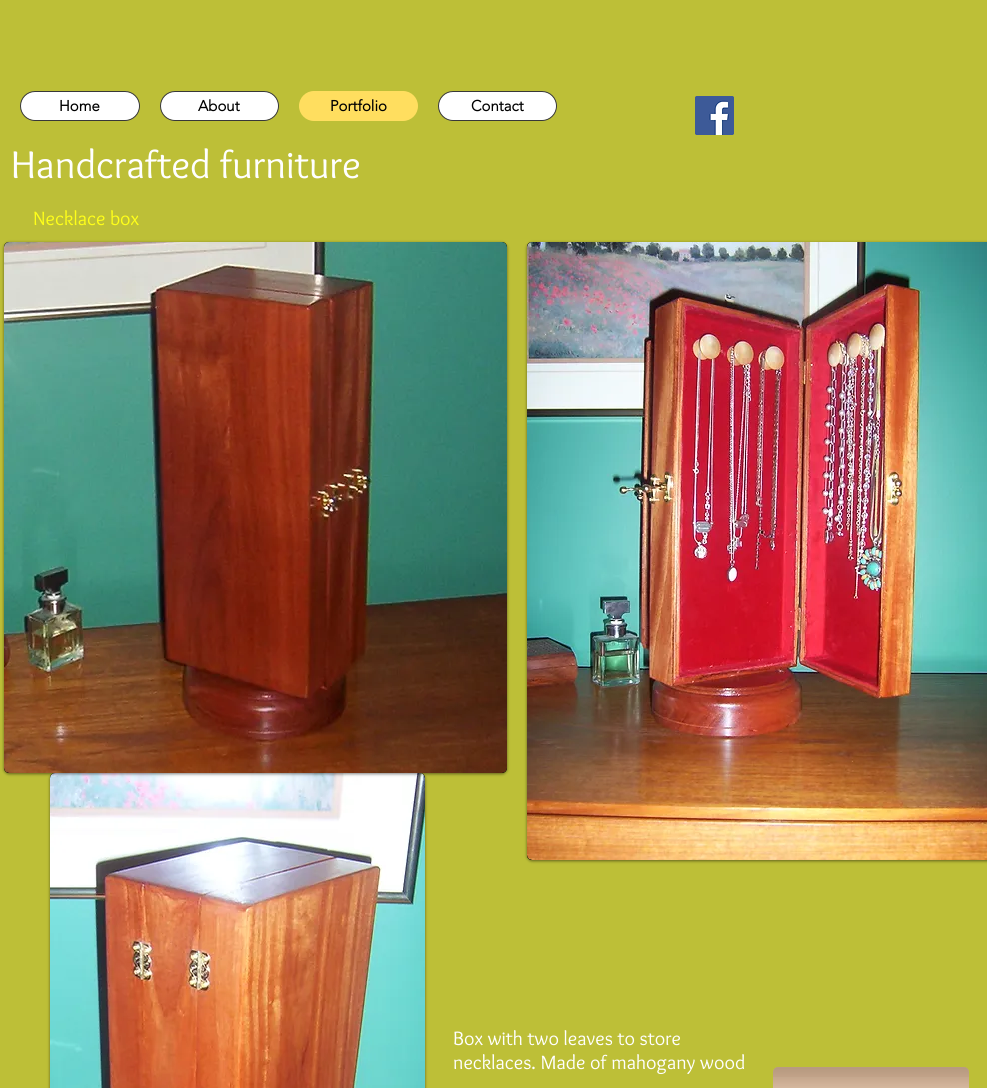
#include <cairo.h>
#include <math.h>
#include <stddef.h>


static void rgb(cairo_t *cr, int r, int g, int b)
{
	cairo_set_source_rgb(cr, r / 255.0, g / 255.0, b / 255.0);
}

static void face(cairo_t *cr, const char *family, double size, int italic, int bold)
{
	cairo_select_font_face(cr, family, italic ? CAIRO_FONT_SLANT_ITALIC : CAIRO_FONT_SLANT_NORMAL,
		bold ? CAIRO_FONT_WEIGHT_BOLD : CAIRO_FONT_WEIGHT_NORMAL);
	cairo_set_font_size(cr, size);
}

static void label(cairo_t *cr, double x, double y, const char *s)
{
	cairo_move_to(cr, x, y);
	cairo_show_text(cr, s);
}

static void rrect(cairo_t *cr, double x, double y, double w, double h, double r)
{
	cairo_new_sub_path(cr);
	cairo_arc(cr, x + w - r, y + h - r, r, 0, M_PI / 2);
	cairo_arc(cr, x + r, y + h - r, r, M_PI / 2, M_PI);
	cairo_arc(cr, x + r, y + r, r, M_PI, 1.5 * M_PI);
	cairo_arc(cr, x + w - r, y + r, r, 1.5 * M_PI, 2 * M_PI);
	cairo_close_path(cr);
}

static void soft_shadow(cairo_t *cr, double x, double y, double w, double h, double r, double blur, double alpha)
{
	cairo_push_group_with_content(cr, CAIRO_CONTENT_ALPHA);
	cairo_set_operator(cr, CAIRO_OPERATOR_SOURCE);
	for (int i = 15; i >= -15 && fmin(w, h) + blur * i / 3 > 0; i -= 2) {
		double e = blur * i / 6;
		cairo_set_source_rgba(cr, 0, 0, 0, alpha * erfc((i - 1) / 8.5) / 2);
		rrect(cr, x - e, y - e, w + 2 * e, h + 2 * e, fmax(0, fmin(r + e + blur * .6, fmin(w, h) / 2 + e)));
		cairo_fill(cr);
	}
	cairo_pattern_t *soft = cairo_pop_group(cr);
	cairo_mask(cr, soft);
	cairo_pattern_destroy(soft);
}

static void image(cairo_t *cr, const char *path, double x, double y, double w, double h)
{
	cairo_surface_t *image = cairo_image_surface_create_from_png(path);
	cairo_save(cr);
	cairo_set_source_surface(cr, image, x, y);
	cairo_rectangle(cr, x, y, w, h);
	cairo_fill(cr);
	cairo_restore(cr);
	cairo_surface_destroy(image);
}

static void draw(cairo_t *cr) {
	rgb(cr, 189, 191, 55);
	cairo_paint(cr);
	rgb(cr, 255, 255, 255);
	rrect(cr, 20.5, 91.5, 119, 29, 14.5);
	cairo_fill_preserve(cr);
	rgb(cr, 56, 56, 56);
	cairo_set_line_width(cr, 1);
	cairo_stroke(cr);
	face(cr, "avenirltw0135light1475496", 15, 0, 1);
	rgb(cr, 0, 0, 0);
	label(cr, 59, 111, "Home");
	rgb(cr, 255, 255, 255);
	rrect(cr, 160.5, 91.5, 118, 29, 14.5);
	cairo_fill_preserve(cr);
	rgb(cr, 56, 56, 56);
	cairo_stroke(cr);
	rgb(cr, 0, 0, 0);
	label(cr, 198, 111, "About");
	rgb(cr, 255, 222, 95);
	rrect(cr, 299, 91, 119, 30, 15);
	cairo_fill(cr);
	rgb(cr, 0, 0, 0);
	label(cr, 330, 111, "Portfolio");
	rgb(cr, 255, 255, 255);
	rrect(cr, 438.5, 91.5, 118, 29, 14.5);
	cairo_fill_preserve(cr);
	rgb(cr, 56, 56, 56);
	cairo_stroke(cr);
	rgb(cr, 0, 0, 0);
	label(cr, 471, 111, "Contact");
	image(cr, "image0.png", 695, 96, 39, 39);
	face(cr, "Overlock", 40, 0, 0);
	rgb(cr, 255, 255, 255);
	label(cr, 11, 178, "Handcrafted furniture");
	face(cr, "Overlock", 20, 0, 0);
	rgb(cr, 255, 255, 25);
	label(cr, 33, 225, "Necklace box");
	rgb(cr, 0, 0, 0);
	soft_shadow(cr, 50, 774, 375, 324, 5, 1.5, 0.5);
	rgb(cr, 0, 0, 0);
	rrect(cr, 50, 773, 375, 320, 5);
	cairo_fill(cr);
	image(cr, "image3.png", 50, 773, 375, 315);
	rgb(cr, 0, 0, 0);
	soft_shadow(cr, 4, 243, 503, 531, 5, 1.5, 0.5);
	rgb(cr, 0, 0, 0);
	rrect(cr, 4, 242, 503, 531, 5);
	cairo_fill(cr);
	image(cr, "image1.png", 4, 242, 503, 531);
	rgb(cr, 0, 0, 0);
	soft_shadow(cr, 527, 243, 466, 618, 5, 1.5, 0.5);
	rgb(cr, 0, 0, 0);
	cairo_new_path(cr);
	cairo_move_to(cr, 532, 242);
	cairo_line_to(cr, 987, 242);
	cairo_line_to(cr, 987, 860);
	cairo_line_to(cr, 532, 860);
	cairo_curve_to(cr, 529, 860, 527, 858, 527, 855);
	cairo_line_to(cr, 527, 247);
	cairo_curve_to(cr, 527, 244, 529, 242, 532, 242);
	cairo_close_path(cr);
	cairo_fill(cr);
	image(cr, "image2.png", 527, 242, 460, 618);
	rgb(cr, 255, 255, 255);
	label(cr, 453, 1045, "Box with two leaves to store");
	label(cr, 453, 1069, "necklaces. Made of mahogany wood");
	rgb(cr, 219, 184, 154);
	rrect(cr, 773, 1067, 196, 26, 5);
	cairo_fill(cr);
	image(cr, "image4.png", 773, 1067, 196, 21);
	image(cr, "image5.png", 773, 1077, 196, 11);
}

int main(void) {
	cairo_surface_t *surface = cairo_image_surface_create(CAIRO_FORMAT_RGB24, 987, 1088);
	cairo_t *cr = cairo_create(surface);
	cairo_font_options_t *options = cairo_font_options_create();
	cairo_font_options_set_hint_metrics(options, CAIRO_HINT_METRICS_OFF);
	cairo_font_options_set_hint_style(options, CAIRO_HINT_STYLE_NONE);
	cairo_set_font_options(cr, options);
	cairo_set_miter_limit(cr, 4);
	draw(cr);
	cairo_surface_write_to_png(surface, "render.png");
	cairo_font_options_destroy(options);
	cairo_destroy(cr);
	cairo_surface_destroy(surface);
	return 0;
}
